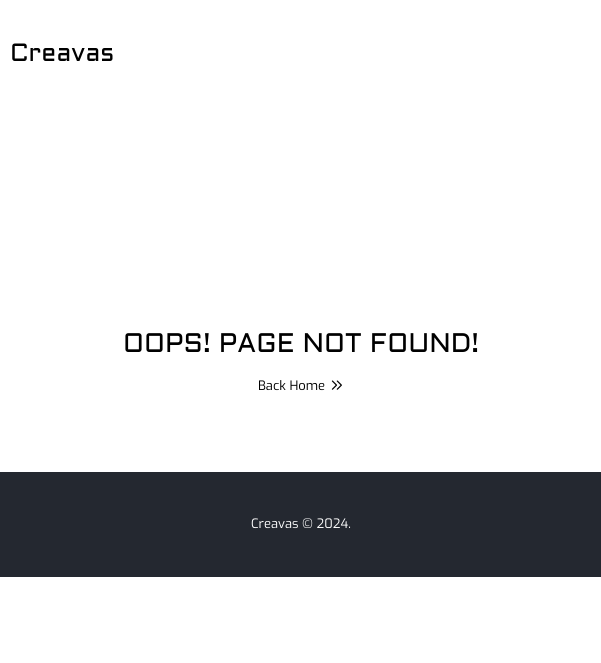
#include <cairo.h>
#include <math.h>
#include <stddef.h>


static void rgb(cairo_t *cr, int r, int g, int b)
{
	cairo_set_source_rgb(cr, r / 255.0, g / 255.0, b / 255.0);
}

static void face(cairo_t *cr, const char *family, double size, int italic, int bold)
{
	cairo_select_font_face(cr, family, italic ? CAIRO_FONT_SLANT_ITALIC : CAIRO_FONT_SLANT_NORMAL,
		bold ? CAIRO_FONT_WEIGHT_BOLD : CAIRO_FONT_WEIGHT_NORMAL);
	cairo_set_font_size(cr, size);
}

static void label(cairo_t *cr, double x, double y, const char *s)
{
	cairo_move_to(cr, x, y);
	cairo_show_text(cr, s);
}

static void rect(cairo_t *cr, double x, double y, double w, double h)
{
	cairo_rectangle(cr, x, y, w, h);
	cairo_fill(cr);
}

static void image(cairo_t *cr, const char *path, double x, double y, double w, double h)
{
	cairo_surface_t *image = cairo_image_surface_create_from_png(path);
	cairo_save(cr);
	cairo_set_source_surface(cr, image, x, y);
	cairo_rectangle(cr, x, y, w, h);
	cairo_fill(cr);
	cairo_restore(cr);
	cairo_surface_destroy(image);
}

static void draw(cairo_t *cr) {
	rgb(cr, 255, 255, 255);
	cairo_paint(cr);
	face(cr, "Aldrich", 25, 0, 0);
	rgb(cr, 0, 0, 0);
	label(cr, 10, 61, "Creavas");
	face(cr, "Aldrich", 26.9, 0, 0);
	label(cr, 123, 352, "OOPS! PAGE NOT FOUND!");
	face(cr, "Exo", 13, 0, 0);
	label(cr, 258, 390, "Back Home");
	image(cr, "image0.png", 331, 380, 11, 10);
	rgb(cr, 36, 40, 48);
	rect(cr, 0, 472, 601, 105);
	rgb(cr, 255, 255, 255);
	label(cr, 251, 528, "Creavas © 2024.");
}

int main(void) {
	cairo_surface_t *surface = cairo_image_surface_create(CAIRO_FORMAT_RGB24, 601, 663);
	cairo_t *cr = cairo_create(surface);
	cairo_font_options_t *options = cairo_font_options_create();
	cairo_font_options_set_hint_metrics(options, CAIRO_HINT_METRICS_OFF);
	cairo_font_options_set_hint_style(options, CAIRO_HINT_STYLE_NONE);
	cairo_set_font_options(cr, options);
	cairo_set_miter_limit(cr, 4);
	draw(cr);
	cairo_surface_write_to_png(surface, "render.png");
	cairo_font_options_destroy(options);
	cairo_destroy(cr);
	cairo_surface_destroy(surface);
	return 0;
}
